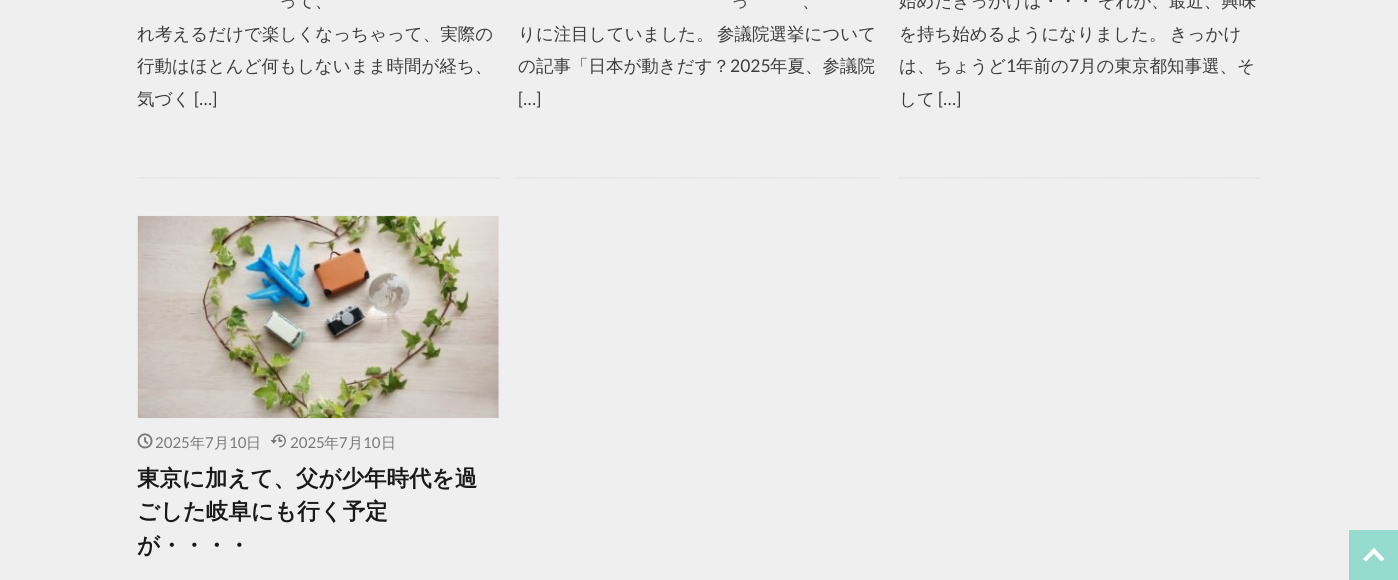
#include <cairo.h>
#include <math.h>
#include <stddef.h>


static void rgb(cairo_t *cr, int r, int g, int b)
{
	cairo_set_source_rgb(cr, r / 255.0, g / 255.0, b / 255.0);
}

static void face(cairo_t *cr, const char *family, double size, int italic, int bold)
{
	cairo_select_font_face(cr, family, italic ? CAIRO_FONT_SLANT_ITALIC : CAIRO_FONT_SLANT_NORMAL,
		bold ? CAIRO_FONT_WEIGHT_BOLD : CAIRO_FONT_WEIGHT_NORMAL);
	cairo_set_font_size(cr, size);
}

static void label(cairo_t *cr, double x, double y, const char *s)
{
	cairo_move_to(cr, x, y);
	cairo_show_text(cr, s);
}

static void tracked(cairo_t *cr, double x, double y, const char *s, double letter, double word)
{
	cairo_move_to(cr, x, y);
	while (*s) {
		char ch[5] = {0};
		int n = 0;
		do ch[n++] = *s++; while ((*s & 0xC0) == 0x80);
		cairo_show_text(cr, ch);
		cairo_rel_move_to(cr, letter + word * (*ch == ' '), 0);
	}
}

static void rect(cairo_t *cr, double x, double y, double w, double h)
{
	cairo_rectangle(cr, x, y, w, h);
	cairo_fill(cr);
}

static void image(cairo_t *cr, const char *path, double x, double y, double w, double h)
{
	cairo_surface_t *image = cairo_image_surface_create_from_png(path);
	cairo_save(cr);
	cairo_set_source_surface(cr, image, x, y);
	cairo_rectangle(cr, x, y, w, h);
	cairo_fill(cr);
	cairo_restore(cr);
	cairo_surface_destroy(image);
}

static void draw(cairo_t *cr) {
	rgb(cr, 239, 239, 239);
	cairo_paint(cr);
	cairo_new_path(cr);
	cairo_move_to(cr, 137.5, 178);
	cairo_line_to(cr, 499, 178);
	rgb(cr, 215, 215, 215);
	cairo_set_line_width(cr, 1.2);
	cairo_set_dash(cr, (double[]){1.25, 1.25}, 2, 0);
	cairo_stroke(cr);
	face(cr, "WenQuanYi Zen Hei Medium", 17.5, 0, 0);
	rgb(cr, 60, 60, 60);
	label(cr, 279, 7, "って、");
	label(cr, 137, 40, "れ考えるだけで楽しくなっちゃって、実際の");
	label(cr, 137, 72, "行動はほとんど何もしないまま時間が経ち、");
	label(cr, 137, 105, "気づく");
	face(cr, "Lato", 17.5, 0, 0);
	label(cr, 194, 105, "[…]");
	cairo_new_path(cr);
	cairo_move_to(cr, 517.5, 178);
	cairo_line_to(cr, 880, 178);
	rgb(cr, 215, 215, 215);
	cairo_stroke(cr);
	face(cr, "WenQuanYi Zen Hei Medium", 17.5, 0, 0);
	rgb(cr, 60, 60, 60);
	label(cr, 731, 7, "っ");
	label(cr, 802, 7, "、");
	tracked(cr, 518, 40, "りに注目していました。 参議院選挙について", 0, -2);
	label(cr, 518, 72, "の記事「日本が動きだす？");
	face(cr, "Lato", 17.5, 0, 0);
	label(cr, 730, 72, "2025");
	face(cr, "WenQuanYi Zen Hei Medium", 17.5, 0, 0);
	label(cr, 770, 72, "年夏、参議院");
	face(cr, "Lato", 17.5, 0, 0);
	label(cr, 518, 105, "[…]");
	cairo_new_path(cr);
	cairo_move_to(cr, 899, 178);
	cairo_line_to(cr, 1261, 178);
	rgb(cr, 215, 215, 215);
	cairo_stroke(cr);
	face(cr, "WenQuanYi Zen Hei Medium", 17.5, 0, 0);
	rgb(cr, 60, 60, 60);
	tracked(cr, 899, 7, "始めたきっかけは・・・ それが、最近、興味", 0, -2);
	tracked(cr, 899, 40, "を持ち始めるようになりました。 きっかけ", 0, -2);
	label(cr, 899, 72, "は、ちょうど");
	face(cr, "Lato", 17.5, 0, 0);
	label(cr, 1006, 72, "1");
	face(cr, "WenQuanYi Zen Hei Medium", 17.5, 0, 0);
	label(cr, 1016, 72, "年前の");
	face(cr, "Lato", 17.5, 0, 0);
	label(cr, 1069, 72, "7");
	face(cr, "WenQuanYi Zen Hei Medium", 17.5, 0, 0);
	label(cr, 1079, 72, "月の東京都知事選、そ");
	label(cr, 899, 105, "して");
	face(cr, "Lato", 17.5, 0, 0);
	label(cr, 938, 105, "[…]");
	image(cr, "image0.png", 137, 215, 362, 204);
	image(cr, "image1.png", 137, 433, 16, 16);
	face(cr, "Lato", 15, 0, 0);
	rgb(cr, 120, 120, 120);
	label(cr, 155, 448, "2025");
	face(cr, "WenQuanYi Zen Hei Medium", 15, 0, 0);
	label(cr, 190, 448, "年");
	face(cr, "Lato", 15, 0, 0);
	label(cr, 205, 448, "7");
	face(cr, "WenQuanYi Zen Hei Medium", 15, 0, 0);
	label(cr, 214, 448, "月");
	face(cr, "Lato", 15, 0, 0);
	label(cr, 229, 448, "10");
	face(cr, "WenQuanYi Zen Hei Medium", 15, 0, 0);
	label(cr, 246, 448, "日");
	image(cr, "image2.png", 270, 434, 16, 14);
	face(cr, "Lato", 15, 0, 0);
	label(cr, 290, 448, "2025");
	face(cr, "WenQuanYi Zen Hei Medium", 15, 0, 0);
	label(cr, 324, 448, "年");
	face(cr, "Lato", 15, 0, 0);
	label(cr, 339, 448, "7");
	face(cr, "WenQuanYi Zen Hei Medium", 15, 0, 0);
	label(cr, 348, 448, "月");
	face(cr, "Lato", 15, 0, 0);
	label(cr, 363, 448, "10");
	face(cr, "WenQuanYi Zen Hei Medium", 15, 0, 0);
	label(cr, 381, 448, "日");
	face(cr, "WenQuanYi Zen Hei", 22.5, 0, 1);
	rgb(cr, 25, 25, 25);
	label(cr, 137, 486, "東京に加えて、父が少年時代を過");
	label(cr, 137, 519, "ごした岐阜にも行く予定");
	label(cr, 137, 553, "が・・・・");
	rgb(cr, 149, 219, 206);
	rect(cr, 1349, 530, 49, 50);
	rgb(cr, 255, 255, 255);
	cairo_new_path(cr);
	cairo_move_to(cr, 1363, 559);
	cairo_line_to(cr, 1374, 548);
	cairo_line_to(cr, 1376.5, 551);
	cairo_line_to(cr, 1366, 561.5);
	cairo_close_path(cr);
	cairo_fill(cr);
	cairo_new_path(cr);
	cairo_move_to(cr, 1371, 551);
	cairo_line_to(cr, 1374, 548);
	cairo_line_to(cr, 1384.5, 559);
	cairo_line_to(cr, 1381.5, 561.5);
	cairo_close_path(cr);
	cairo_fill(cr);
}

int main(void) {
	cairo_surface_t *surface = cairo_image_surface_create(CAIRO_FORMAT_RGB24, 1398, 580);
	cairo_t *cr = cairo_create(surface);
	cairo_font_options_t *options = cairo_font_options_create();
	cairo_font_options_set_hint_metrics(options, CAIRO_HINT_METRICS_OFF);
	cairo_font_options_set_hint_style(options, CAIRO_HINT_STYLE_NONE);
	cairo_set_font_options(cr, options);
	cairo_set_miter_limit(cr, 4);
	draw(cr);
	cairo_surface_write_to_png(surface, "render.png");
	cairo_font_options_destroy(options);
	cairo_destroy(cr);
	cairo_surface_destroy(surface);
	return 0;
}
